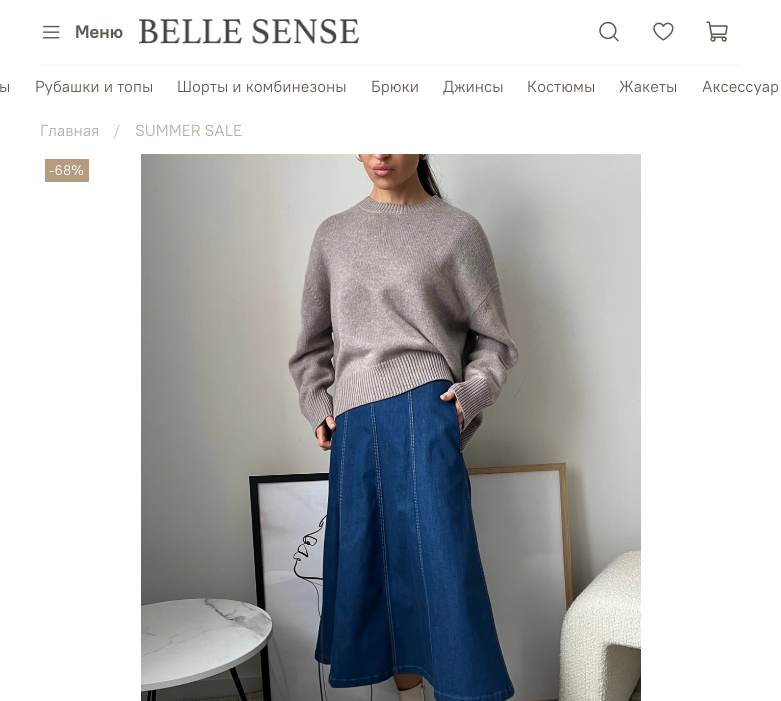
#include <cairo.h>
#include <math.h>
#include <stddef.h>


static void rgb(cairo_t *cr, int r, int g, int b)
{
	cairo_set_source_rgb(cr, r / 255.0, g / 255.0, b / 255.0);
}

static void face(cairo_t *cr, const char *family, double size, int italic, int bold)
{
	cairo_select_font_face(cr, family, italic ? CAIRO_FONT_SLANT_ITALIC : CAIRO_FONT_SLANT_NORMAL,
		bold ? CAIRO_FONT_WEIGHT_BOLD : CAIRO_FONT_WEIGHT_NORMAL);
	cairo_set_font_size(cr, size);
}

static void label(cairo_t *cr, double x, double y, const char *s)
{
	cairo_move_to(cr, x, y);
	cairo_show_text(cr, s);
}

static void rect(cairo_t *cr, double x, double y, double w, double h)
{
	cairo_rectangle(cr, x, y, w, h);
	cairo_fill(cr);
}

static void image(cairo_t *cr, const char *path, double x, double y, double w, double h)
{
	cairo_surface_t *image = cairo_image_surface_create_from_png(path);
	cairo_save(cr);
	cairo_set_source_surface(cr, image, x, y);
	cairo_rectangle(cr, x, y, w, h);
	cairo_fill(cr);
	cairo_restore(cr);
	cairo_surface_destroy(image);
}

static void draw(cairo_t *cr) {
	rgb(cr, 255, 255, 255);
	cairo_paint(cr);
	image(cr, "image0.png", 42, 25, 18, 14);
	face(cr, "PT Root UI", 18, 0, 1);
	rgb(cr, 99, 88, 77);
	label(cr, 75, 38, "Меню");
	image(cr, "image1.png", 139, 19, 220, 25);
	image(cr, "image2.png", 599, 21, 20, 21);
	image(cr, "image3.png", 653, 22, 21, 19);
	image(cr, "image4.png", 706, 21, 22, 21);
	rgb(cr, 247, 247, 247);
	rect(cr, 40, 64, 701, 1);
	face(cr, "PT Root UI", 16, 0, 0);
	rgb(cr, 99, 88, 77);
	label(cr, -1, 92, "ы");
	label(cr, 35, 92, "Рубашки и топы");
	label(cr, 177, 92, "Шорты и комбинезоны");
	label(cr, 371, 92, "Брюки");
	label(cr, 443, 92, "Джинсы");
	label(cr, 527, 92, "Костюмы");
	label(cr, 619, 92, "Жакеты");
	label(cr, 702, 92, "Аксессуар");
	rgb(cr, 183, 172, 161);
	label(cr, 40, 136, "Главная");
	rgb(cr, 205, 197, 189);
	label(cr, 113, 136, "/");
	rgb(cr, 183, 172, 161);
	label(cr, 135, 136, "SUMMER SALE");
	rgb(cr, 183, 155, 126);
	rect(cr, 45, 159, 44, 23);
	face(cr, "PT Root UI", 14, 0, 0);
	rgb(cr, 255, 255, 255);
	label(cr, 49, 175, "-68%");
	image(cr, "image5.png", 141, 154, 500, 547);
}

int main(void) {
	cairo_surface_t *surface = cairo_image_surface_create(CAIRO_FORMAT_RGB24, 781, 701);
	cairo_t *cr = cairo_create(surface);
	cairo_font_options_t *options = cairo_font_options_create();
	cairo_font_options_set_hint_metrics(options, CAIRO_HINT_METRICS_OFF);
	cairo_font_options_set_hint_style(options, CAIRO_HINT_STYLE_NONE);
	cairo_set_font_options(cr, options);
	cairo_set_miter_limit(cr, 4);
	draw(cr);
	cairo_surface_write_to_png(surface, "render.png");
	cairo_font_options_destroy(options);
	cairo_destroy(cr);
	cairo_surface_destroy(surface);
	return 0;
}
